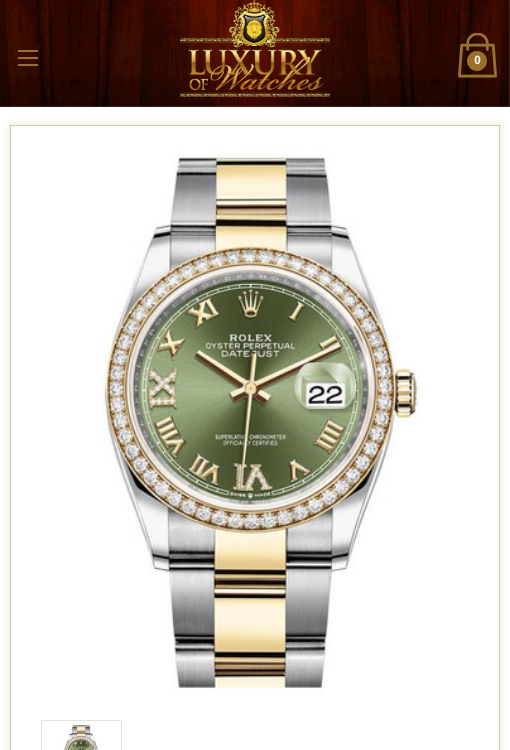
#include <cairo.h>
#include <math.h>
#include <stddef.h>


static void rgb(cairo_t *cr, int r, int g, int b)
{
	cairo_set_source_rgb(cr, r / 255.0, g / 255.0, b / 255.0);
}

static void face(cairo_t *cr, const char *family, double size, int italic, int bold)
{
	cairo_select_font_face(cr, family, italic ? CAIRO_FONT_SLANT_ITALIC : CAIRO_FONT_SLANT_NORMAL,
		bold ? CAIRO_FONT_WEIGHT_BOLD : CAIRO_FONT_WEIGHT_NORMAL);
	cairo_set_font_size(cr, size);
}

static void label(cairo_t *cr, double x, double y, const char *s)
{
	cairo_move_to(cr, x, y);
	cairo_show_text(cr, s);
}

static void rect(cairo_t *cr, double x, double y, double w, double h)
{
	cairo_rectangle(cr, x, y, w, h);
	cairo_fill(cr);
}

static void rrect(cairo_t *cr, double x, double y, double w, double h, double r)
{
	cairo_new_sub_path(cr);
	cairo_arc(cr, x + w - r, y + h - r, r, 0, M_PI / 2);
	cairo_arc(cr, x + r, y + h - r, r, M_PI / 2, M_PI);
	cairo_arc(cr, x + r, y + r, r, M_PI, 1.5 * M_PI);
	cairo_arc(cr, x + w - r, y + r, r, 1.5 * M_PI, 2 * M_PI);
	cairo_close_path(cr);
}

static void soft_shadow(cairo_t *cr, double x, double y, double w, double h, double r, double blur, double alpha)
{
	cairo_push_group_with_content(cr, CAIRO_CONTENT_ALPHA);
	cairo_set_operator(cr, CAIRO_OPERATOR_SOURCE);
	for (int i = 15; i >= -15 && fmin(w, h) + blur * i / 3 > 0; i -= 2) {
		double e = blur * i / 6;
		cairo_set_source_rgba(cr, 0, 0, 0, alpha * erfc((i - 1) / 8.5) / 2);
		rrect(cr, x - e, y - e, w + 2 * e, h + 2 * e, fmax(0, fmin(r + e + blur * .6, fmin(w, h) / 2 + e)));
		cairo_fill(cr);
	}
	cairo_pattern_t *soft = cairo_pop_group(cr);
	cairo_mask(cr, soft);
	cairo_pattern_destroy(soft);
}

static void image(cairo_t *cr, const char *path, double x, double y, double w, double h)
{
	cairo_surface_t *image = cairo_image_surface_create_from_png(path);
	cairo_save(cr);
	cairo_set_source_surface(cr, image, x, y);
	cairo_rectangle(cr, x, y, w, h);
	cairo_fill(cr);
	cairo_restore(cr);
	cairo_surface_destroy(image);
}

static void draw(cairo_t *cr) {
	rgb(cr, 255, 255, 255);
	cairo_paint(cr);
	image(cr, "image0.png", 0, 0, 510, 107);
	rgb(cr, 153, 112, 42);
	rect(cr, 18, 57, 20, 2);
	rect(cr, 18, 50, 20, 2);
	rect(cr, 18, 64, 20, 2);
	image(cr, "image1.png", 180, 0, 150, 97);
	image(cr, "image2.png", 458, 33, 39, 45);
	cairo_arc(cr, 477, 61, 10, 0, 2 * M_PI);
	cairo_fill(cr);
	face(cr, "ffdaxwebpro", 12, 0, 1);
	rgb(cr, 255, 255, 255);
	label(cr, 474, 64, "0");
	cairo_save(cr);
	cairo_set_fill_rule(cr, CAIRO_FILL_RULE_EVEN_ODD);
	cairo_new_path(cr);
	cairo_move_to(cr, 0, 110);
	cairo_line_to(cr, 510, 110);
	cairo_line_to(cr, 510, 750);
	cairo_line_to(cr, 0, 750);
	cairo_close_path(cr);
	cairo_move_to(cr, 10, 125);
	cairo_line_to(cr, 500, 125);
	cairo_line_to(cr, 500, 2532);
	cairo_line_to(cr, 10, 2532);
	cairo_close_path(cr);
	cairo_clip(cr);
	rgb(cr, 231, 224, 202);
	soft_shadow(cr, 11, 126, 488, 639, 0, 5, 1);
	cairo_restore(cr);
	cairo_rectangle(cr, 10.5, 125.5, 489, 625);
	rgb(cr, 211, 200, 164);
	cairo_set_line_width(cr, 1);
	cairo_stroke(cr);
	image(cr, "image3.png", 100, 150, 320, 545);
	cairo_rectangle(cr, 41.5, 720.5, 80, 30);
	rgb(cr, 229, 229, 229);
	cairo_stroke(cr);
	image(cr, "image4.png", 63, 723, 37, 27);
}

int main(void) {
	cairo_surface_t *surface = cairo_image_surface_create(CAIRO_FORMAT_RGB24, 510, 750);
	cairo_t *cr = cairo_create(surface);
	cairo_font_options_t *options = cairo_font_options_create();
	cairo_font_options_set_hint_metrics(options, CAIRO_HINT_METRICS_OFF);
	cairo_font_options_set_hint_style(options, CAIRO_HINT_STYLE_NONE);
	cairo_set_font_options(cr, options);
	cairo_set_miter_limit(cr, 4);
	draw(cr);
	cairo_surface_write_to_png(surface, "render.png");
	cairo_font_options_destroy(options);
	cairo_destroy(cr);
	cairo_surface_destroy(surface);
	return 0;
}
